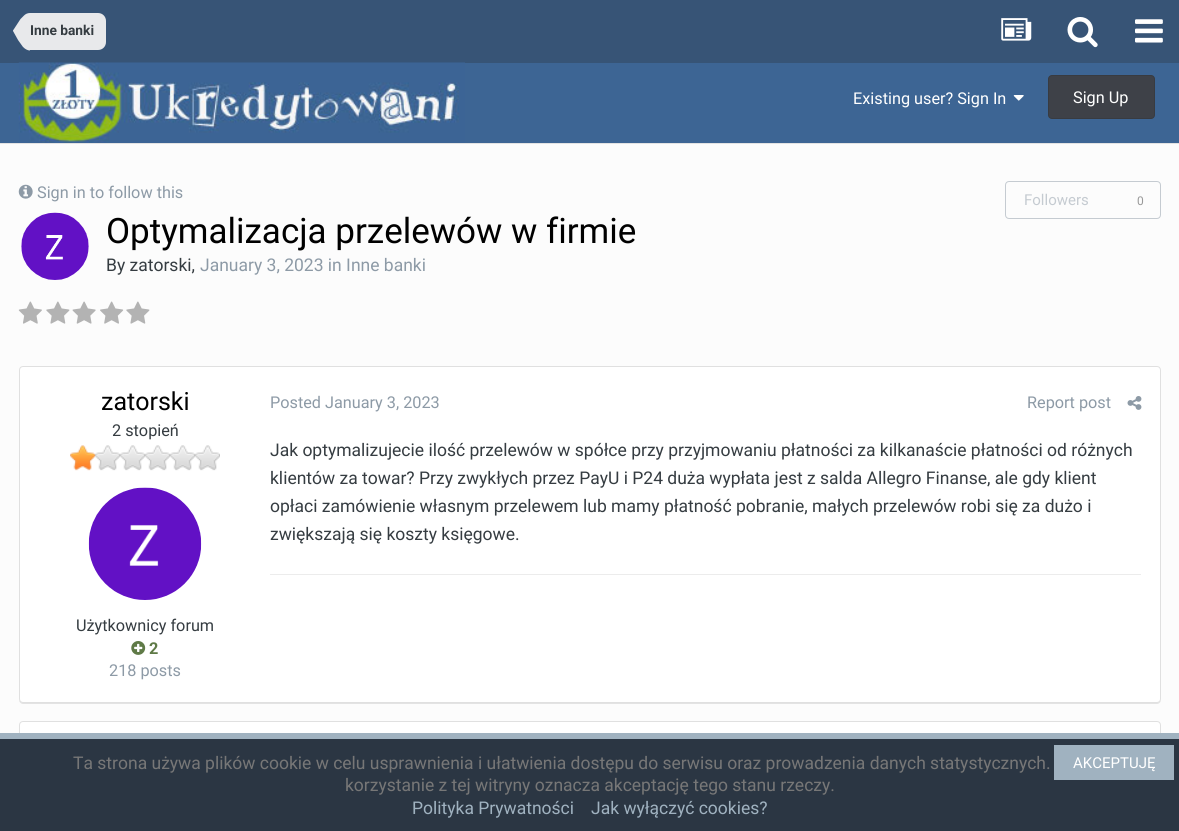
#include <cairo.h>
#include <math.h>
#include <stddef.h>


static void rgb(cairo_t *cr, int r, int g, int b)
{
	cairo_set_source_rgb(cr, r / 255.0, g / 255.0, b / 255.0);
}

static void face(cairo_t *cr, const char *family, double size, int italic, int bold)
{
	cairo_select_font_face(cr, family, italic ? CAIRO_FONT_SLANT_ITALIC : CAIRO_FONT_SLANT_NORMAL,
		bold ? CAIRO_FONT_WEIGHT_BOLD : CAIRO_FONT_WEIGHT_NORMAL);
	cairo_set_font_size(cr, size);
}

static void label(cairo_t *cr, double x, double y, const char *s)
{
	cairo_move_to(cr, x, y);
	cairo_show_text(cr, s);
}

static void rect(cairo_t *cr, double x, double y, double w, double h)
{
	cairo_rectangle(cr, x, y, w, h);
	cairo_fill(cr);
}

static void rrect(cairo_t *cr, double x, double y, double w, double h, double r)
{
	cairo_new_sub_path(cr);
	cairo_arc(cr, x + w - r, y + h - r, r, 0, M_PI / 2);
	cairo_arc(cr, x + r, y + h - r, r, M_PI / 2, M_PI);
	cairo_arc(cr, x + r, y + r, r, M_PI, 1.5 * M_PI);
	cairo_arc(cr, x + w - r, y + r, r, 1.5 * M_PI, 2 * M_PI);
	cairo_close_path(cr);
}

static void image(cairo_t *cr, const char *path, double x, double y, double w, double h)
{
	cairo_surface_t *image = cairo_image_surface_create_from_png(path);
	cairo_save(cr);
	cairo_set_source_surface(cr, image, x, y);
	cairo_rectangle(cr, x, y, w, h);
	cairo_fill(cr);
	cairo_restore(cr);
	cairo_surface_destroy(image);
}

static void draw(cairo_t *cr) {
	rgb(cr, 252, 252, 252);
	cairo_paint(cr);
	rgb(cr, 227, 227, 227);
	rect(cr, 0, 143, 1179, 1);
	rgb(cr, 55, 84, 118);
	rect(cr, 0, 0, 1179, 63);
	rgb(cr, 232, 233, 235);
	cairo_new_path(cr);
	cairo_move_to(cr, 30, 13);
	cairo_line_to(cr, 98, 13);
	cairo_curve_to(cr, 102.5, 13, 106, 16.5, 106, 21);
	cairo_line_to(cr, 106, 42);
	cairo_curve_to(cr, 106, 46.5, 102.5, 50, 98, 50);
	cairo_line_to(cr, 30, 50);
	cairo_close_path(cr);
	cairo_fill(cr);
	cairo_new_path(cr);
	cairo_move_to(cr, 13, 31);
	cairo_line_to(cr, 30, 31);
	cairo_line_to(cr, 30, 50.5);
	cairo_curve_to(cr, 28, 50.5, 25.5, 49.5, 23, 47);
	cairo_line_to(cr, 18, 40);
	cairo_close_path(cr);
	cairo_move_to(cr, 30, 13);
	cairo_line_to(cr, 30, 31);
	cairo_line_to(cr, 13, 31);
	cairo_line_to(cr, 13, 30.5);
	cairo_line_to(cr, 20.5, 19);
	cairo_line_to(cr, 24, 15.5);
	cairo_curve_to(cr, 25.5, 14, 27.5, 13, 30, 13);
	cairo_close_path(cr);
	cairo_fill(cr);
	face(cr, "Roboto", 13.75, 0, 1);
	rgb(cr, 53, 60, 65);
	label(cr, 30, 35, "Inne banki");
	image(cr, "image0.png", 1001, 18, 31, 23);
	image(cr, "image1.png", 1067, 17, 31, 31);
	image(cr, "image2.png", 1135, 19, 28, 24);
	rgb(cr, 61, 101, 148);
	rect(cr, 0, 63, 1179, 80);
	image(cr, "image3.png", 18, 62, 447, 81);
	face(cr, "Roboto", 16.25, 0, 0);
	rgb(cr, 255, 255, 255);
	label(cr, 853, 104, "Existing user? Sign In");
	image(cr, "image4.png", 1013, 95, 11, 6);
	rgb(cr, 62, 65, 72);
	rrect(cr, 1048, 75, 107, 44, 4);
	cairo_fill(cr);
	rrect(cr, 1048.5, 75.5, 106, 43, 3.5);
	cairo_set_source_rgba(cr, 0, 0, 0, 0.1);
	cairo_set_line_width(cr, 1);
	cairo_stroke(cr);
	rgb(cr, 255, 255, 255);
	label(cr, 1073, 103, "Sign Up");
	image(cr, "image5.png", 18, 184, 15, 15);
	rgb(cr, 141, 154, 166);
	label(cr, 37, 198, "Sign in to follow this");
	rrect(cr, 1005.5, 181.5, 155, 37, 3.5);
	rgb(cr, 197, 203, 209);
	cairo_stroke(cr);
	face(cr, "Roboto", 15, 0, 0);
	label(cr, 1024, 205, "Followers");
	face(cr, "Roboto", 12, 0, 0);
	rgb(cr, 152, 152, 152);
	label(cr, 1137, 205, "0");
	rgb(cr, 255, 255, 255);
	rrect(cr, 21, 213, 68, 67, 33.5);
	cairo_fill(cr);
	image(cr, "image6.png", 21, 212, 68, 68);
	face(cr, "Roboto", 35, 0, 0);
	rgb(cr, 0, 0, 0);
	label(cr, 106, 243, "Optymalizacja przelewów w firmie");
	face(cr, "Roboto", 17.5, 0, 0);
	rgb(cr, 53, 60, 65);
	label(cr, 106, 271, "By zatorski,");
	rgb(cr, 141, 154, 166);
	label(cr, 200, 271, "January 3, 2023 in Inne banki");
	image(cr, "image7.png", 18, 301, 24, 23);
	image(cr, "image8.png", 46, 301, 24, 23);
	image(cr, "image9.png", 72, 301, 24, 23);
	image(cr, "image10.png", 100, 301, 24, 23);
	image(cr, "image8.png", 126, 301, 24, 23);
	rgb(cr, 227, 227, 227);
	cairo_new_path(cr);
	cairo_move_to(cr, 19, 700);
	cairo_curve_to(cr, 19, 702, 21, 704, 23, 704);
	cairo_line_to(cr, 1157, 704);
	cairo_curve_to(cr, 1159, 704, 1161, 702, 1161, 700);
	cairo_curve_to(cr, 1160, 702, 1159, 702, 1158, 702);
	cairo_line_to(cr, 22, 702);
	cairo_curve_to(cr, 21, 702, 20, 702, 19, 700);
	cairo_close_path(cr);
	cairo_fill(cr);
	rgb(cr, 255, 255, 255);
	rrect(cr, 19.5, 366.5, 1141, 336, 3.5);
	cairo_fill_preserve(cr);
	rgb(cr, 224, 224, 224);
	cairo_stroke(cr);
	face(cr, "Roboto", 25, 0, 0);
	rgb(cr, 0, 0, 0);
	label(cr, 101, 410, "zatorski");
	face(cr, "Roboto", 16.25, 0, 0);
	rgb(cr, 53, 60, 65);
	label(cr, 112, 436, "2 stopień");
	image(cr, "image11.png", 70, 445, 150, 26);
	image(cr, "image12.png", 88, 487, 114, 113);
	label(cr, 76, 631, "Użytkownicy forum");
	image(cr, "image13.png", 131, 641, 15, 14);
	face(cr, "Roboto", 16.25, 0, 1);
	rgb(cr, 95, 122, 71);
	label(cr, 149, 654, "2");
	face(cr, "Roboto", 16.25, 0, 0);
	rgb(cr, 141, 154, 166);
	label(cr, 109, 676, "218 posts");
	label(cr, 270, 408, "Posted January 3, 2023");
	label(cr, 1027, 408, "Report post");
	image(cr, "image14.png", 1127, 396, 15, 14);
	face(cr, "Roboto", 17.5, 0, 0);
	rgb(cr, 53, 60, 65);
	label(cr, 270, 456, "Jak optymalizujecie ilość przelewów w spółce przy przyjmowaniu płatności za kilkanaście płatności od różnych");
	label(cr, 270, 484, "klientów za towar? Przy zwykłych przez PayU i P24 duża wypłata jest z salda Allegro Finanse, ale gdy klient");
	label(cr, 270, 512, "opłaci zamówienie własnym przelewem lub mamy płatność pobranie, małych przelewów robi się za dużo i");
	label(cr, 270, 540, "zwiększają się koszty księgowe.");
	rgb(cr, 236, 236, 236);
	rect(cr, 270, 574, 871, 1);
	rgb(cr, 255, 255, 255);
	rrect(cr, 19.5, 721.5, 1141, 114, 3.5);
	cairo_fill_preserve(cr);
	rgb(cr, 224, 224, 224);
	cairo_stroke(cr);
	rgb(cr, 43, 54, 67);
	rect(cr, 0, 739, 1179, 92);
	rgb(cr, 160, 178, 192);
	rect(cr, 0, 733, 1179, 6);
	rgb(cr, 119, 119, 119);
	label(cr, 73, 769, "Ta strona używa plików cookie w celu usprawnienia i ułatwienia dostępu do serwisu oraz prowadzenia danych statystycznych.");
	rgb(cr, 160, 178, 192);
	rect(cr, 1054, 745, 120, 35);
	face(cr, "Roboto", 15, 0, 0);
	rgb(cr, 255, 255, 255);
	label(cr, 1073, 768, "AKCEPTUJĘ");
	face(cr, "Roboto", 17.5, 0, 0);
	rgb(cr, 119, 119, 119);
	label(cr, 345, 791, "korzystanie z tej witryny oznacza akceptację tego stanu rzeczy.");
	rgb(cr, 160, 178, 192);
	label(cr, 412, 814, "Polityka Prywatności");
	label(cr, 591, 814, "Jak wyłączyć cookies?");
}

int main(void) {
	cairo_surface_t *surface = cairo_image_surface_create(CAIRO_FORMAT_RGB24, 1179, 831);
	cairo_t *cr = cairo_create(surface);
	cairo_font_options_t *options = cairo_font_options_create();
	cairo_font_options_set_hint_metrics(options, CAIRO_HINT_METRICS_OFF);
	cairo_font_options_set_hint_style(options, CAIRO_HINT_STYLE_NONE);
	cairo_set_font_options(cr, options);
	cairo_set_miter_limit(cr, 4);
	draw(cr);
	cairo_surface_write_to_png(surface, "render.png");
	cairo_font_options_destroy(options);
	cairo_destroy(cr);
	cairo_surface_destroy(surface);
	return 0;
}
